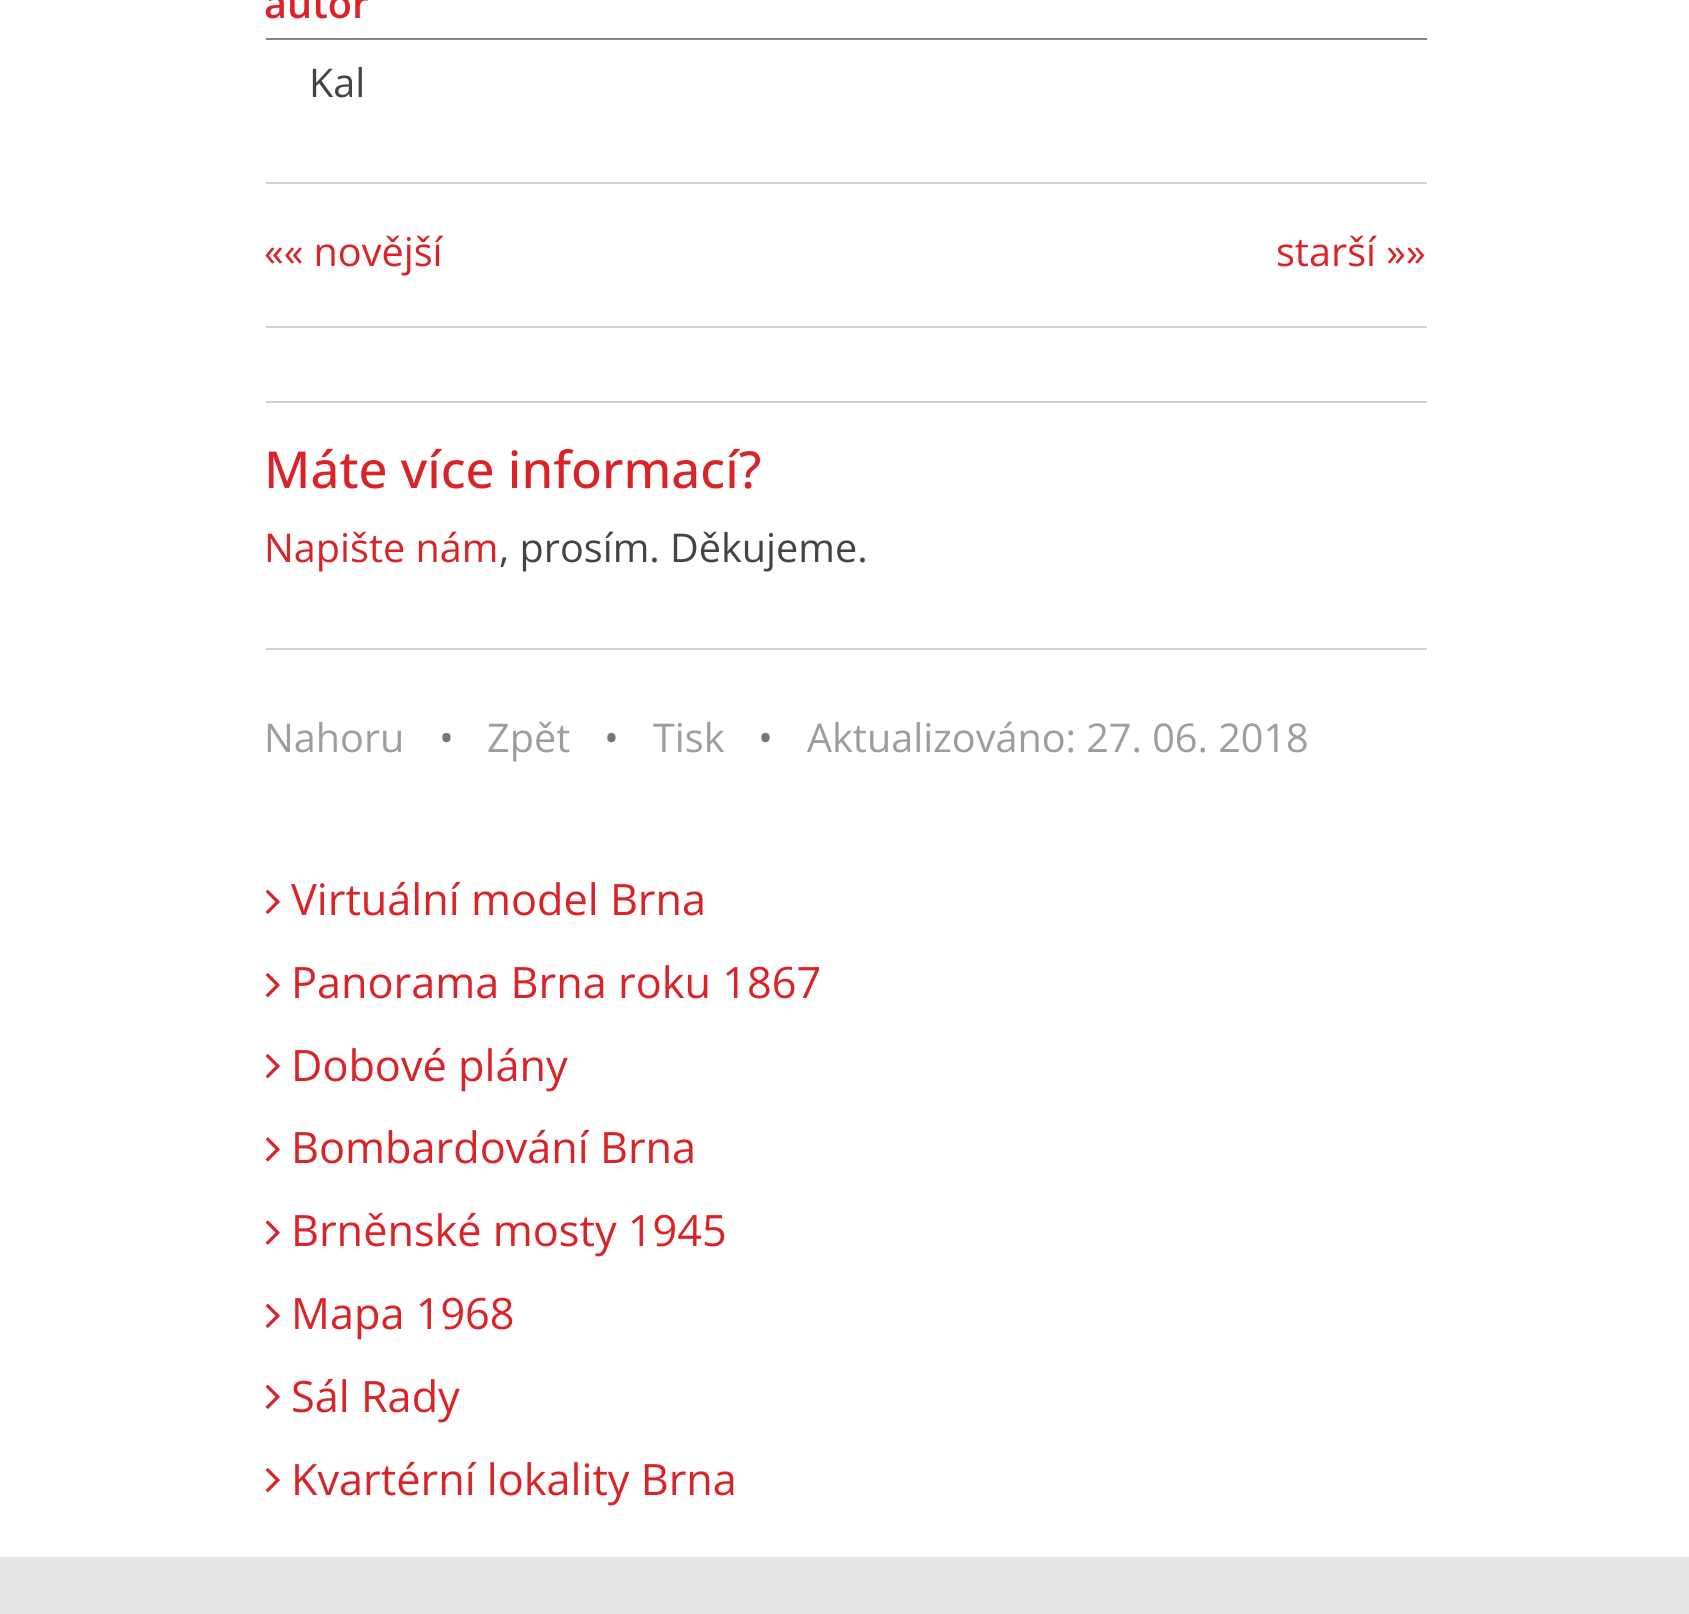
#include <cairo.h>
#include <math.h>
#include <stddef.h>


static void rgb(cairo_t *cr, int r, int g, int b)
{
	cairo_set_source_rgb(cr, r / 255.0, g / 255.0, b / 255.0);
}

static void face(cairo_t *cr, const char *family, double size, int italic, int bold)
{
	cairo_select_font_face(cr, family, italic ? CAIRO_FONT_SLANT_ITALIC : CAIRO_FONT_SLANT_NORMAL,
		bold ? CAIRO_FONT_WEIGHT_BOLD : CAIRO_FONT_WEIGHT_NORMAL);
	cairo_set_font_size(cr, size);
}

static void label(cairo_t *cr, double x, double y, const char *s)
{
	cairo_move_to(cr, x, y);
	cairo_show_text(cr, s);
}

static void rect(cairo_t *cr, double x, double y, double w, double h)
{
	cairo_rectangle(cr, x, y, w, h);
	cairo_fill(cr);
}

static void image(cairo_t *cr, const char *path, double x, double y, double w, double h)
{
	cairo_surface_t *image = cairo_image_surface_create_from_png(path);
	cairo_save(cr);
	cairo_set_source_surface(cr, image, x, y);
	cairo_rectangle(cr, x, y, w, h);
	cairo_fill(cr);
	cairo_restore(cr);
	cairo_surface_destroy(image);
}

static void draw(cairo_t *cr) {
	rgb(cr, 255, 255, 255);
	cairo_paint(cr);
	rgb(cr, 132, 132, 132);
	rect(cr, 266, 38, 1161, 2);
	face(cr, "Open Sans SemiBold", 39.6, 0, 0);
	rgb(cr, 218, 35, 39);
	label(cr, 264, 18, "autor");
	face(cr, "Open Sans", 39.6, 0, 0);
	rgb(cr, 68, 68, 68);
	label(cr, 309, 97, "Kal");
	rgb(cr, 208, 208, 208);
	rect(cr, 266, 182, 1161, 2);
	rgb(cr, 218, 35, 39);
	label(cr, 264, 266, "«« novější");
	label(cr, 1276, 266, "starší »»");
	rgb(cr, 208, 208, 208);
	rect(cr, 266, 326, 1161, 2);
	rect(cr, 266, 401, 1161, 2);
	face(cr, "Open Sans Medium", 51, 0, 0);
	rgb(cr, 218, 35, 39);
	label(cr, 264, 488, "Máte více informací?");
	face(cr, "Open Sans", 39.6, 0, 0);
	label(cr, 264, 562, "Napište nám");
	rgb(cr, 68, 68, 68);
	label(cr, 499, 562, ", prosím. Děkujeme.");
	rgb(cr, 208, 208, 208);
	rect(cr, 266, 648, 1161, 2);
	rgb(cr, 157, 157, 157);
	label(cr, 264, 752, "Nahoru");
	rgb(cr, 119, 119, 119);
	label(cr, 439, 752, "•");
	rgb(cr, 157, 157, 157);
	label(cr, 487, 752, "Zpět");
	rgb(cr, 119, 119, 119);
	label(cr, 604, 752, "•");
	rgb(cr, 157, 157, 157);
	label(cr, 653, 752, "Tisk");
	rgb(cr, 119, 119, 119);
	label(cr, 758, 752, "•");
	rgb(cr, 157, 157, 157);
	label(cr, 807, 752, "Aktualizováno: 27. 06. 2018");
	image(cr, "image0.png", 265, 889, 15, 25);
	face(cr, "Open Sans", 43.25, 0, 0);
	rgb(cr, 218, 35, 39);
	label(cr, 291, 915, "Virtuální model Brna");
	image(cr, "image1.png", 265, 973, 15, 25);
	label(cr, 291, 998, "Panorama Brna roku 1867");
	image(cr, "image1.png", 265, 1054, 15, 25);
	label(cr, 291, 1081, "Dobové plány");
	image(cr, "image2.png", 265, 1137, 15, 25);
	label(cr, 291, 1163, "Bombardování Brna");
	image(cr, "image3.png", 265, 1220, 15, 25);
	label(cr, 291, 1246, "Brněnské mosty 1945");
	image(cr, "image0.png", 265, 1303, 15, 25);
	label(cr, 291, 1329, "Mapa 1968");
	image(cr, "image0.png", 265, 1384, 15, 25);
	label(cr, 291, 1412, "Sál Rady");
	image(cr, "image1.png", 265, 1468, 15, 25);
	label(cr, 291, 1495, "Kvartérní lokality Brna");
	rgb(cr, 230, 230, 230);
	rect(cr, 0, 1557, 1689, 57);
}

int main(void) {
	cairo_surface_t *surface = cairo_image_surface_create(CAIRO_FORMAT_RGB24, 1689, 1614);
	cairo_t *cr = cairo_create(surface);
	cairo_font_options_t *options = cairo_font_options_create();
	cairo_font_options_set_hint_metrics(options, CAIRO_HINT_METRICS_OFF);
	cairo_font_options_set_hint_style(options, CAIRO_HINT_STYLE_NONE);
	cairo_set_font_options(cr, options);
	cairo_set_miter_limit(cr, 4);
	draw(cr);
	cairo_surface_write_to_png(surface, "render.png");
	cairo_font_options_destroy(options);
	cairo_destroy(cr);
	cairo_surface_destroy(surface);
	return 0;
}
